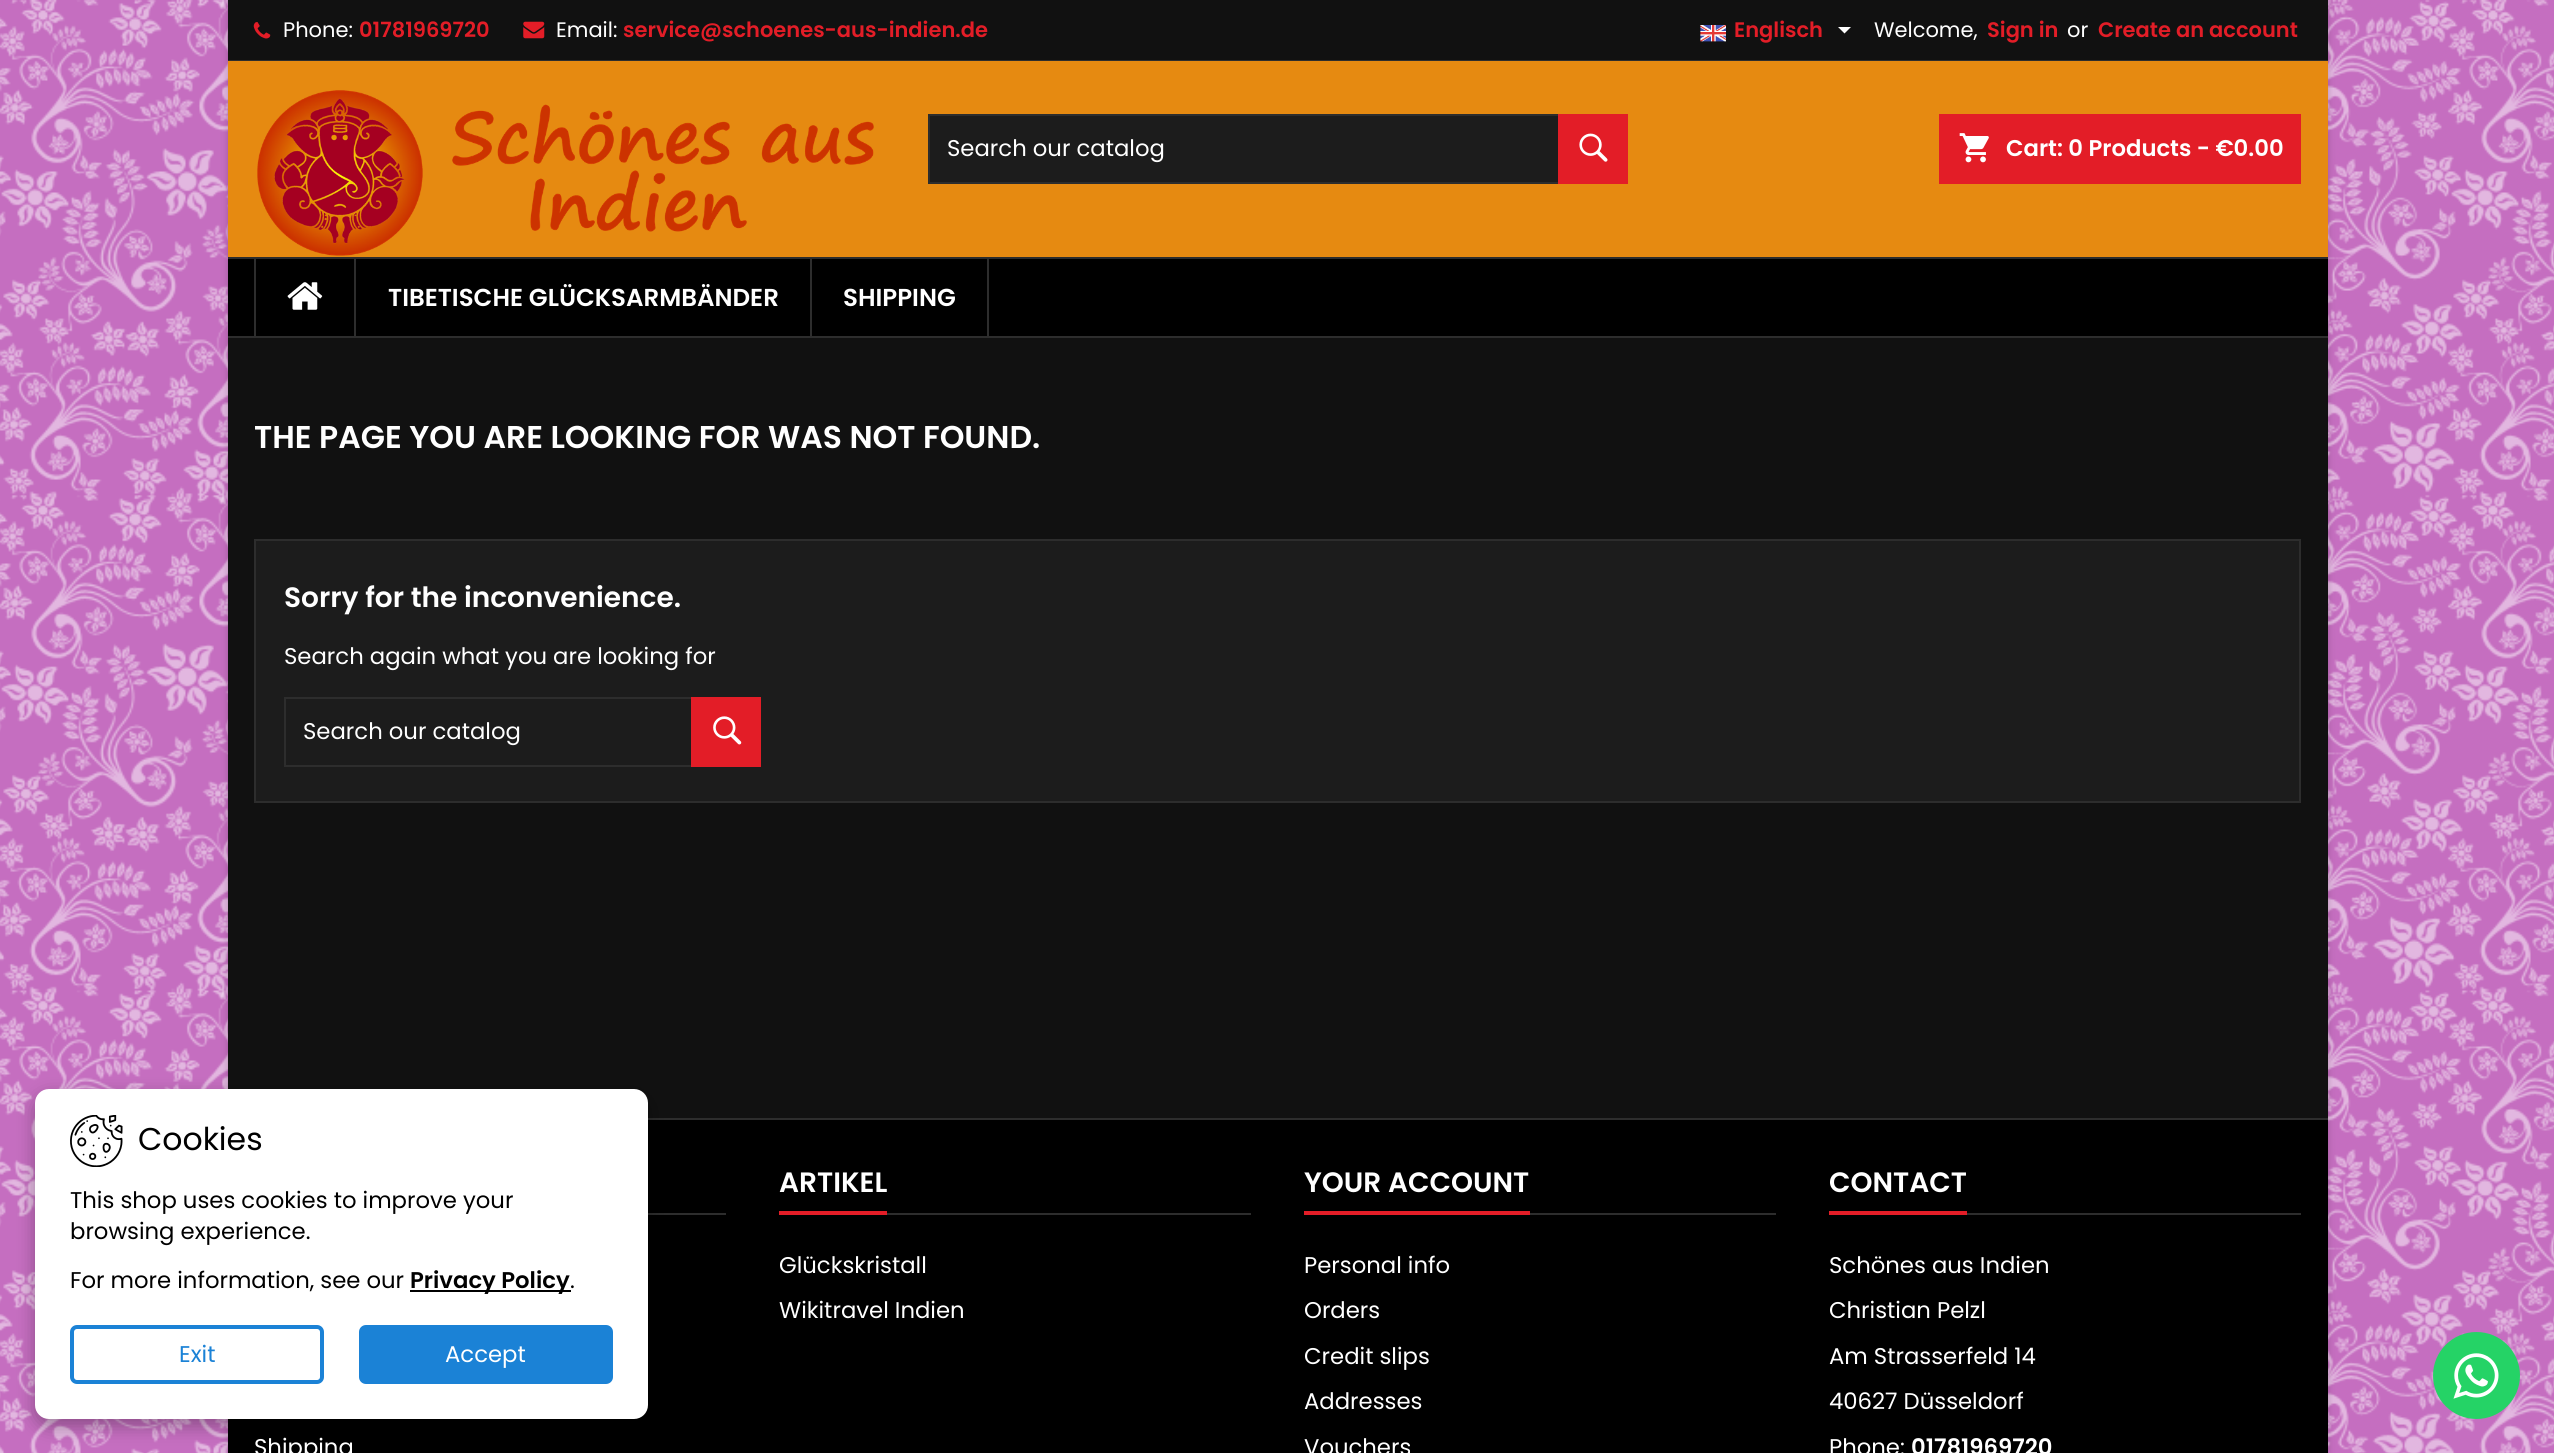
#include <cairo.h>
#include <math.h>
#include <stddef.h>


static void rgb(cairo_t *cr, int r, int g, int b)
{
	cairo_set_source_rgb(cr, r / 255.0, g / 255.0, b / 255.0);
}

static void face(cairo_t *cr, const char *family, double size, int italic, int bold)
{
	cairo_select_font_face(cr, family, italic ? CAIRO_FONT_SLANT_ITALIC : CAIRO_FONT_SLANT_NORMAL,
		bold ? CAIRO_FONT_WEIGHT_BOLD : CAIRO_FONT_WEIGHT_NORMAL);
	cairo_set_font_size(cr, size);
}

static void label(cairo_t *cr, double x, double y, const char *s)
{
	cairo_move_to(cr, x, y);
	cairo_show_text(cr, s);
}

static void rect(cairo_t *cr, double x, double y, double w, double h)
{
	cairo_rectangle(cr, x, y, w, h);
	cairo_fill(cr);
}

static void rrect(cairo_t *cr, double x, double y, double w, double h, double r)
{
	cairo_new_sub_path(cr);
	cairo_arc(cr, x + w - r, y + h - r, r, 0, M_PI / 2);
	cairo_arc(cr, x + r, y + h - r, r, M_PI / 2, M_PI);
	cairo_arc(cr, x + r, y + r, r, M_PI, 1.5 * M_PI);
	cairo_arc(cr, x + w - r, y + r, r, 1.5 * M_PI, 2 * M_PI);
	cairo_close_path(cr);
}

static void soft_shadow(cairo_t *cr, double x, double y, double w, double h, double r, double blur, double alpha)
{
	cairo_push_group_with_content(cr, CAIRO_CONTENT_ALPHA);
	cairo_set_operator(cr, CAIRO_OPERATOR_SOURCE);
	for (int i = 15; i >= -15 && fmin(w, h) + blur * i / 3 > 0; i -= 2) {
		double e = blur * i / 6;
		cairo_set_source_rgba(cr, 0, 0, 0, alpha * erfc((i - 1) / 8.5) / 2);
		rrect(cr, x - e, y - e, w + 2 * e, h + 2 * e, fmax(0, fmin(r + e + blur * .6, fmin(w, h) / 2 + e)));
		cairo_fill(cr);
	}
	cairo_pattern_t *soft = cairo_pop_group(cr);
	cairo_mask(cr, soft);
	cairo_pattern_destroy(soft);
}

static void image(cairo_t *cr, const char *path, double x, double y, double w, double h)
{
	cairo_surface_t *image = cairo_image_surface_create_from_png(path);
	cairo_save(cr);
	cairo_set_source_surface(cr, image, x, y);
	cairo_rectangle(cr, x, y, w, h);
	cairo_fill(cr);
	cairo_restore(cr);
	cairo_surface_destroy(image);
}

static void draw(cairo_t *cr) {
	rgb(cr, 197, 110, 192);
	cairo_paint(cr);
	image(cr, "image0.png", 0, 0, 2554, 1453);
	rgb(cr, 0, 0, 0);
	soft_shadow(cr, 228, 0, 2100, 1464, 0, 3.5, 0.2);
	rgb(cr, 17, 17, 17);
	rect(cr, 228, 0, 2100, 1118);
	rgb(cr, 45, 45, 45);
	rect(cr, 228, 60, 2100, 1);
	image(cr, "image1.png", 253, 22, 18, 17);
	face(cr, "Poppins", 21, 0, 0);
	rgb(cr, 255, 255, 255);
	label(cr, 283, 37, "Phone:");
	face(cr, "Poppins SemiBold", 21, 0, 0);
	rgb(cr, 227, 29, 39);
	label(cr, 359, 37, "01781969720");
	image(cr, "image2.png", 523, 21, 22, 18);
	face(cr, "Poppins", 21, 0, 0);
	rgb(cr, 255, 255, 255);
	label(cr, 556, 37, "Email:");
	face(cr, "Poppins SemiBold", 21, 0, 0);
	rgb(cr, 227, 29, 39);
	label(cr, 623, 37, "service@schoenes-aus-indien.de");
	image(cr, "image3.png", 1700, 25, 26, 17);
	label(cr, 1734, 37, "Englisch");
	rgb(cr, 255, 255, 255);
	cairo_new_path(cr);
	cairo_move_to(cr, 1838, 27);
	cairo_line_to(cr, 1851, 27);
	cairo_line_to(cr, 1844.5, 33.5);
	cairo_close_path(cr);
	cairo_fill(cr);
	face(cr, "Poppins", 21, 0, 0);
	label(cr, 1874, 37, "Welcome,");
	face(cr, "Poppins SemiBold", 21, 0, 0);
	rgb(cr, 227, 29, 39);
	label(cr, 1987, 37, "Sign in");
	face(cr, "Poppins", 21, 0, 0);
	rgb(cr, 255, 255, 255);
	label(cr, 2067, 37, "or");
	face(cr, "Poppins SemiBold", 21, 0, 0);
	rgb(cr, 227, 29, 39);
	label(cr, 2098, 37, "Create an account");
	rgb(cr, 230, 138, 17);
	rect(cr, 228, 61, 2100, 196);
	image(cr, "image4.png", 257, 90, 617, 166);
	rgb(cr, 28, 28, 28);
	rect(cr, 930, 116, 628, 66);
	cairo_rectangle(cr, 929, 115, 698, 68);
	rgb(cr, 45, 45, 45);
	cairo_stroke(cr);
	face(cr, "Poppins", 22.75, 0, 0);
	rgb(cr, 255, 255, 255);
	label(cr, 947, 156, "Search our catalog");
	rgb(cr, 227, 29, 39);
	rect(cr, 1558, 114, 70, 70);
	image(cr, "image5.png", 1579, 133, 29, 29);
	rect(cr, 1939, 114, 362, 70);
	image(cr, "image6.png", 1959, 133, 30, 30);
	face(cr, "Poppins SemiBold", 22.75, 0, 0);
	rgb(cr, 255, 255, 255);
	label(cr, 2006, 156, "Cart: 0 Products - €0.00");
	rgb(cr, 0, 0, 0);
	rect(cr, 228, 259, 2100, 77);
	rgb(cr, 45, 45, 45);
	rect(cr, 228, 257, 2100, 2);
	rect(cr, 228, 336, 2100, 2);
	rect(cr, 254, 259, 2, 77);
	image(cr, "image7.png", 287, 282, 36, 28);
	rect(cr, 354, 259, 2, 77);
	face(cr, "Poppins SemiBold", 24.5, 0, 0);
	rgb(cr, 255, 255, 255);
	label(cr, 388, 306, "TIBETISCHE GLÜCKSARMBÄNDER");
	rgb(cr, 45, 45, 45);
	rect(cr, 987, 259, 2, 77);
	rect(cr, 810, 259, 2, 77);
	rgb(cr, 255, 255, 255);
	label(cr, 843, 306, "SHIPPING");
	face(cr, "Poppins SemiBold", 31.5, 0, 0);
	label(cr, 254, 448, "THE PAGE YOU ARE LOOKING FOR WAS NOT FOUND.");
	rgb(cr, 28, 28, 28);
	cairo_rectangle(cr, 255, 540, 2045, 262);
	cairo_fill_preserve(cr);
	rgb(cr, 45, 45, 45);
	cairo_stroke(cr);
	face(cr, "Poppins SemiBold", 28, 0, 0);
	rgb(cr, 255, 255, 255);
	label(cr, 284, 607, "Sorry for the inconvenience.");
	face(cr, "Poppins", 22.75, 0, 0);
	label(cr, 284, 664, "Search again what you are looking for");
	cairo_rectangle(cr, 285, 698, 475, 68);
	rgb(cr, 45, 45, 45);
	cairo_stroke(cr);
	rgb(cr, 255, 255, 255);
	label(cr, 303, 739, "Search our catalog");
	rgb(cr, 227, 29, 39);
	rect(cr, 691, 697, 70, 70);
	image(cr, "image8.png", 713, 716, 29, 29);
	rgb(cr, 0, 0, 0);
	rect(cr, 228, 1120, 2100, 333);
	rgb(cr, 45, 45, 45);
	rect(cr, 648, 1118, 1680, 2);
	rect(cr, 648, 1213, 78, 2);
	rgb(cr, 0, 0, 0);
	soft_shadow(cr, 35, 1096, 613, 330, 14, 9, 0.3);
	rgb(cr, 255, 255, 255);
	rrect(cr, 35, 1089, 613, 330, 14);
	cairo_fill(cr);
	image(cr, "image9.png", 70, 1115, 53, 52);
	face(cr, "Poppins", 31.5, 0, 0);
	rgb(cr, 0, 0, 0);
	label(cr, 138, 1150, "Cookies");
	face(cr, "Poppins", 22.75, 0, 0);
	label(cr, 70, 1208, "This shop uses cookies to improve your");
	label(cr, 70, 1239, "browsing experience.");
	label(cr, 70, 1288, "For more information, see our");
	rect(cr, 410, 1290, 161, 2);
	face(cr, "Poppins SemiBold", 22.75, 0, 0);
	label(cr, 410, 1288, "Privacy Policy");
	face(cr, "Poppins", 22.75, 0, 0);
	label(cr, 570, 1288, ".");
	rrect(cr, 72, 1327, 250, 55, 5);
	rgb(cr, 27, 130, 214);
	cairo_set_line_width(cr, 4);
	cairo_stroke(cr);
	label(cr, 179, 1362, "Exit");
	rrect(cr, 361, 1327, 250, 55, 5);
	cairo_fill_preserve(cr);
	cairo_stroke(cr);
	rgb(cr, 255, 255, 255);
	label(cr, 445, 1362, "Accept");
	rgb(cr, 45, 45, 45);
	rect(cr, 887, 1213, 364, 2);
	rgb(cr, 227, 29, 39);
	rect(cr, 779, 1211, 108, 4);
	face(cr, "Poppins SemiBold", 28, 0, 0);
	rgb(cr, 255, 255, 255);
	label(cr, 779, 1192, "ARTIKEL");
	face(cr, "Poppins", 22.75, 0, 0);
	label(cr, 779, 1273, "Glückskristall");
	label(cr, 779, 1318, "Wikitravel Indien");
	rgb(cr, 45, 45, 45);
	rect(cr, 1530, 1213, 246, 2);
	rgb(cr, 227, 29, 39);
	rect(cr, 1304, 1211, 226, 4);
	face(cr, "Poppins SemiBold", 28, 0, 0);
	rgb(cr, 255, 255, 255);
	label(cr, 1304, 1192, "YOUR ACCOUNT");
	face(cr, "Poppins", 22.75, 0, 0);
	label(cr, 1304, 1273, "Personal info");
	label(cr, 1304, 1318, "Orders");
	label(cr, 1304, 1364, "Credit slips");
	label(cr, 1304, 1409, "Addresses");
	label(cr, 1304, 1455, "Vouchers");
	rgb(cr, 45, 45, 45);
	rect(cr, 1967, 1213, 334, 2);
	rgb(cr, 227, 29, 39);
	rect(cr, 1829, 1211, 138, 4);
	face(cr, "Poppins SemiBold", 28, 0, 0);
	rgb(cr, 255, 255, 255);
	label(cr, 1829, 1192, "CONTACT");
	face(cr, "Poppins", 22.75, 0, 0);
	label(cr, 1829, 1273, "Schönes aus Indien");
	label(cr, 1829, 1318, "Christian Pelzl");
	label(cr, 1829, 1364, "Am Strasserfeld 14");
	label(cr, 1829, 1409, "40627 Düsseldorf");
	label(cr, 1829, 1455, "Phone:");
	face(cr, "Poppins SemiBold", 22.75, 0, 0);
	label(cr, 1911, 1455, "01781969720");
	rgb(cr, 37, 211, 102);
	cairo_new_path(cr);
	cairo_arc(cr, 2476.5, 1375.5, 43.5, 0, 2 * M_PI);
	cairo_fill(cr);
	image(cr, "image10.png", 2453, 1353, 46, 46);
	face(cr, "Poppins", 22.75, 0, 0);
	rgb(cr, 255, 255, 255);
	label(cr, 254, 1455, "Shipping");
}

int main(void) {
	cairo_surface_t *surface = cairo_image_surface_create(CAIRO_FORMAT_RGB24, 2554, 1453);
	cairo_t *cr = cairo_create(surface);
	cairo_font_options_t *options = cairo_font_options_create();
	cairo_font_options_set_hint_metrics(options, CAIRO_HINT_METRICS_OFF);
	cairo_font_options_set_hint_style(options, CAIRO_HINT_STYLE_NONE);
	cairo_set_font_options(cr, options);
	cairo_set_miter_limit(cr, 4);
	draw(cr);
	cairo_surface_write_to_png(surface, "render.png");
	cairo_font_options_destroy(options);
	cairo_destroy(cr);
	cairo_surface_destroy(surface);
	return 0;
}
